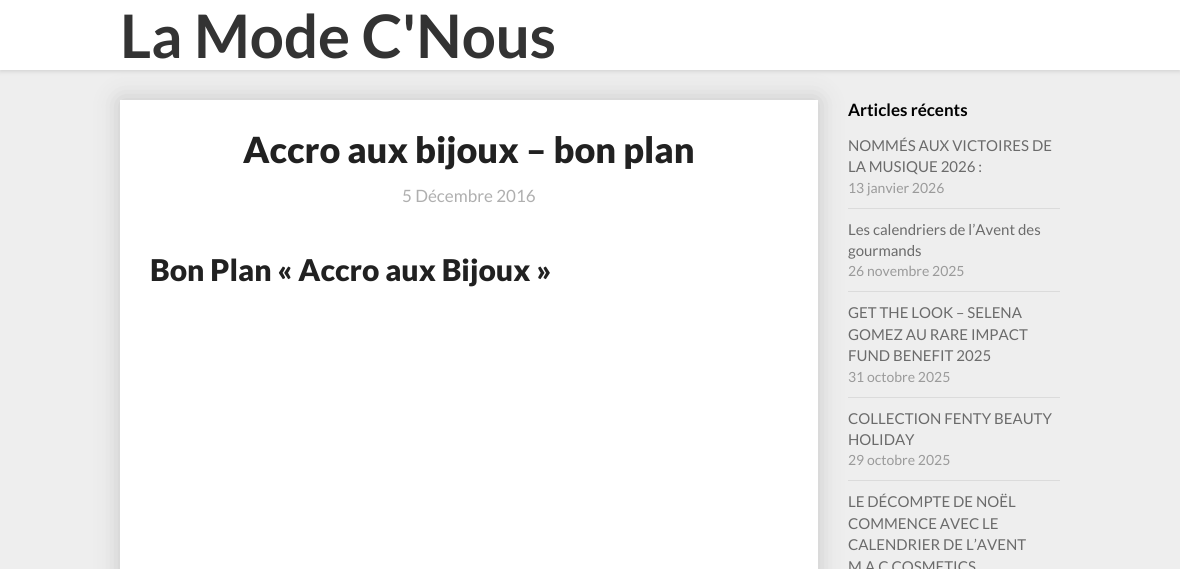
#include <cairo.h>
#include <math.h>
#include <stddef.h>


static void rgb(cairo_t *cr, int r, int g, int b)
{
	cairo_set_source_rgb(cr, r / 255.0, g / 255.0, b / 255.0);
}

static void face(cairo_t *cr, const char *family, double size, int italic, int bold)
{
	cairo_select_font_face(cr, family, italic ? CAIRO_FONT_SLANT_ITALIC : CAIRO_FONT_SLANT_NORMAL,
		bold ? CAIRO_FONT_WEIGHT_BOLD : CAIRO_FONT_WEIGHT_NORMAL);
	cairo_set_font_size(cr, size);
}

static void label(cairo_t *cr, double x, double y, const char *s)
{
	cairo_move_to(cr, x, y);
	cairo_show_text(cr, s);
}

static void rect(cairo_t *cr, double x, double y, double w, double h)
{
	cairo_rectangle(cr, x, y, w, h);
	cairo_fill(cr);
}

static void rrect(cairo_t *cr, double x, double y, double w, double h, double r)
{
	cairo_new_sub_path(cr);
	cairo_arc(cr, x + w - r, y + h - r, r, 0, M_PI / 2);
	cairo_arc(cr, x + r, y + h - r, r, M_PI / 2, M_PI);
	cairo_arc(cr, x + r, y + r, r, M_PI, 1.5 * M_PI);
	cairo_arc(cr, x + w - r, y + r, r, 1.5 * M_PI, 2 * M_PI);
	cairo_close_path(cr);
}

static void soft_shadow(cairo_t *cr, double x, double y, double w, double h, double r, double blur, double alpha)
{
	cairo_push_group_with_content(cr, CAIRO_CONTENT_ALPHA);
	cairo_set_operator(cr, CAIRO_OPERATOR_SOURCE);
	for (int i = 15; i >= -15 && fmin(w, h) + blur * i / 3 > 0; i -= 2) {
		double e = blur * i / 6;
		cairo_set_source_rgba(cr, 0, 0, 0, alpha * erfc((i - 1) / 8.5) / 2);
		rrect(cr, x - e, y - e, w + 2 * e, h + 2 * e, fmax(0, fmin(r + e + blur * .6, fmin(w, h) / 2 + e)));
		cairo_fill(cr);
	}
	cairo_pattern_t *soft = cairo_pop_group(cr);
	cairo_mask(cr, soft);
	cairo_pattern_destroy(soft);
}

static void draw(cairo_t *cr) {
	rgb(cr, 238, 238, 238);
	cairo_paint(cr);
	rgb(cr, 0, 0, 0);
	soft_shadow(cr, 0, 2, 1180, 70, 0, 2, 0.1);
	soft_shadow(cr, 120, 100, 698, 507, 0, 12.5, 0.17);
	rgb(cr, 255, 255, 255);
	rect(cr, 0, 0, 1180, 70);
	face(cr, "Lato", 60, 0, 1);
	rgb(cr, 51, 51, 51);
	label(cr, 120, 58, "La Mode C'Nous");
	rgb(cr, 255, 255, 255);
	rect(cr, 120, 100, 698, 469);
	face(cr, "Lato Black", 36, 0, 0);
	rgb(cr, 33, 33, 33);
	label(cr, 243, 163, "Accro aux bijoux – bon plan");
	face(cr, "Lato", 17, 0, 0);
	rgb(cr, 175, 175, 175);
	label(cr, 402, 202, "5 Décembre 2016");
	face(cr, "Lato Black", 30, 0, 0);
	rgb(cr, 33, 33, 33);
	label(cr, 150, 281, "Bon Plan « Accro aux Bijoux »");
	face(cr, "Lato", 17, 0, 1);
	rgb(cr, 0, 0, 0);
	label(cr, 848, 116, "Articles récents");
	rgb(cr, 219, 219, 219);
	rect(cr, 848, 208, 212, 1);
	face(cr, "Lato", 15, 0, 0);
	rgb(cr, 107, 107, 107);
	label(cr, 848, 151, "NOMMÉS AUX VICTOIRES DE");
	label(cr, 848, 172, "LA MUSIQUE 2026 :");
	face(cr, "Lato", 14, 0, 0);
	rgb(cr, 154, 154, 154);
	label(cr, 848, 193, "13 janvier 2026");
	rgb(cr, 219, 219, 219);
	rect(cr, 848, 291, 212, 1);
	face(cr, "Lato", 15, 0, 0);
	rgb(cr, 107, 107, 107);
	label(cr, 848, 235, "Les calendriers de l’Avent des");
	label(cr, 848, 256, "gourmands");
	face(cr, "Lato", 14, 0, 0);
	rgb(cr, 154, 154, 154);
	label(cr, 848, 276, "26 novembre 2025");
	rgb(cr, 219, 219, 219);
	rect(cr, 848, 397, 212, 1);
	face(cr, "Lato", 15, 0, 0);
	rgb(cr, 107, 107, 107);
	label(cr, 848, 318, "GET THE LOOK – SELENA");
	label(cr, 848, 340, "GOMEZ AU RARE IMPACT");
	label(cr, 848, 361, "FUND BENEFIT 2025");
	face(cr, "Lato", 14, 0, 0);
	rgb(cr, 154, 154, 154);
	label(cr, 848, 382, "31 octobre 2025");
	rgb(cr, 219, 219, 219);
	rect(cr, 848, 480, 212, 1);
	face(cr, "Lato", 15, 0, 0);
	rgb(cr, 107, 107, 107);
	label(cr, 848, 424, "COLLECTION FENTY BEAUTY");
	label(cr, 848, 445, "HOLIDAY");
	face(cr, "Lato", 14, 0, 0);
	rgb(cr, 154, 154, 154);
	label(cr, 848, 465, "29 octobre 2025");
	face(cr, "Lato", 15, 0, 0);
	rgb(cr, 107, 107, 107);
	label(cr, 848, 507, "LE DÉCOMPTE DE NOËL");
	label(cr, 848, 529, "COMMENCE AVEC LE");
	label(cr, 848, 550, "CALENDRIER DE L’AVENT");
	label(cr, 848, 572, "M.A.C COSMETICS");
}

int main(void) {
	cairo_surface_t *surface = cairo_image_surface_create(CAIRO_FORMAT_RGB24, 1180, 569);
	cairo_t *cr = cairo_create(surface);
	cairo_font_options_t *options = cairo_font_options_create();
	cairo_font_options_set_hint_metrics(options, CAIRO_HINT_METRICS_OFF);
	cairo_font_options_set_hint_style(options, CAIRO_HINT_STYLE_NONE);
	cairo_set_font_options(cr, options);
	cairo_set_miter_limit(cr, 4);
	draw(cr);
	cairo_surface_write_to_png(surface, "render.png");
	cairo_font_options_destroy(options);
	cairo_destroy(cr);
	cairo_surface_destroy(surface);
	return 0;
}
